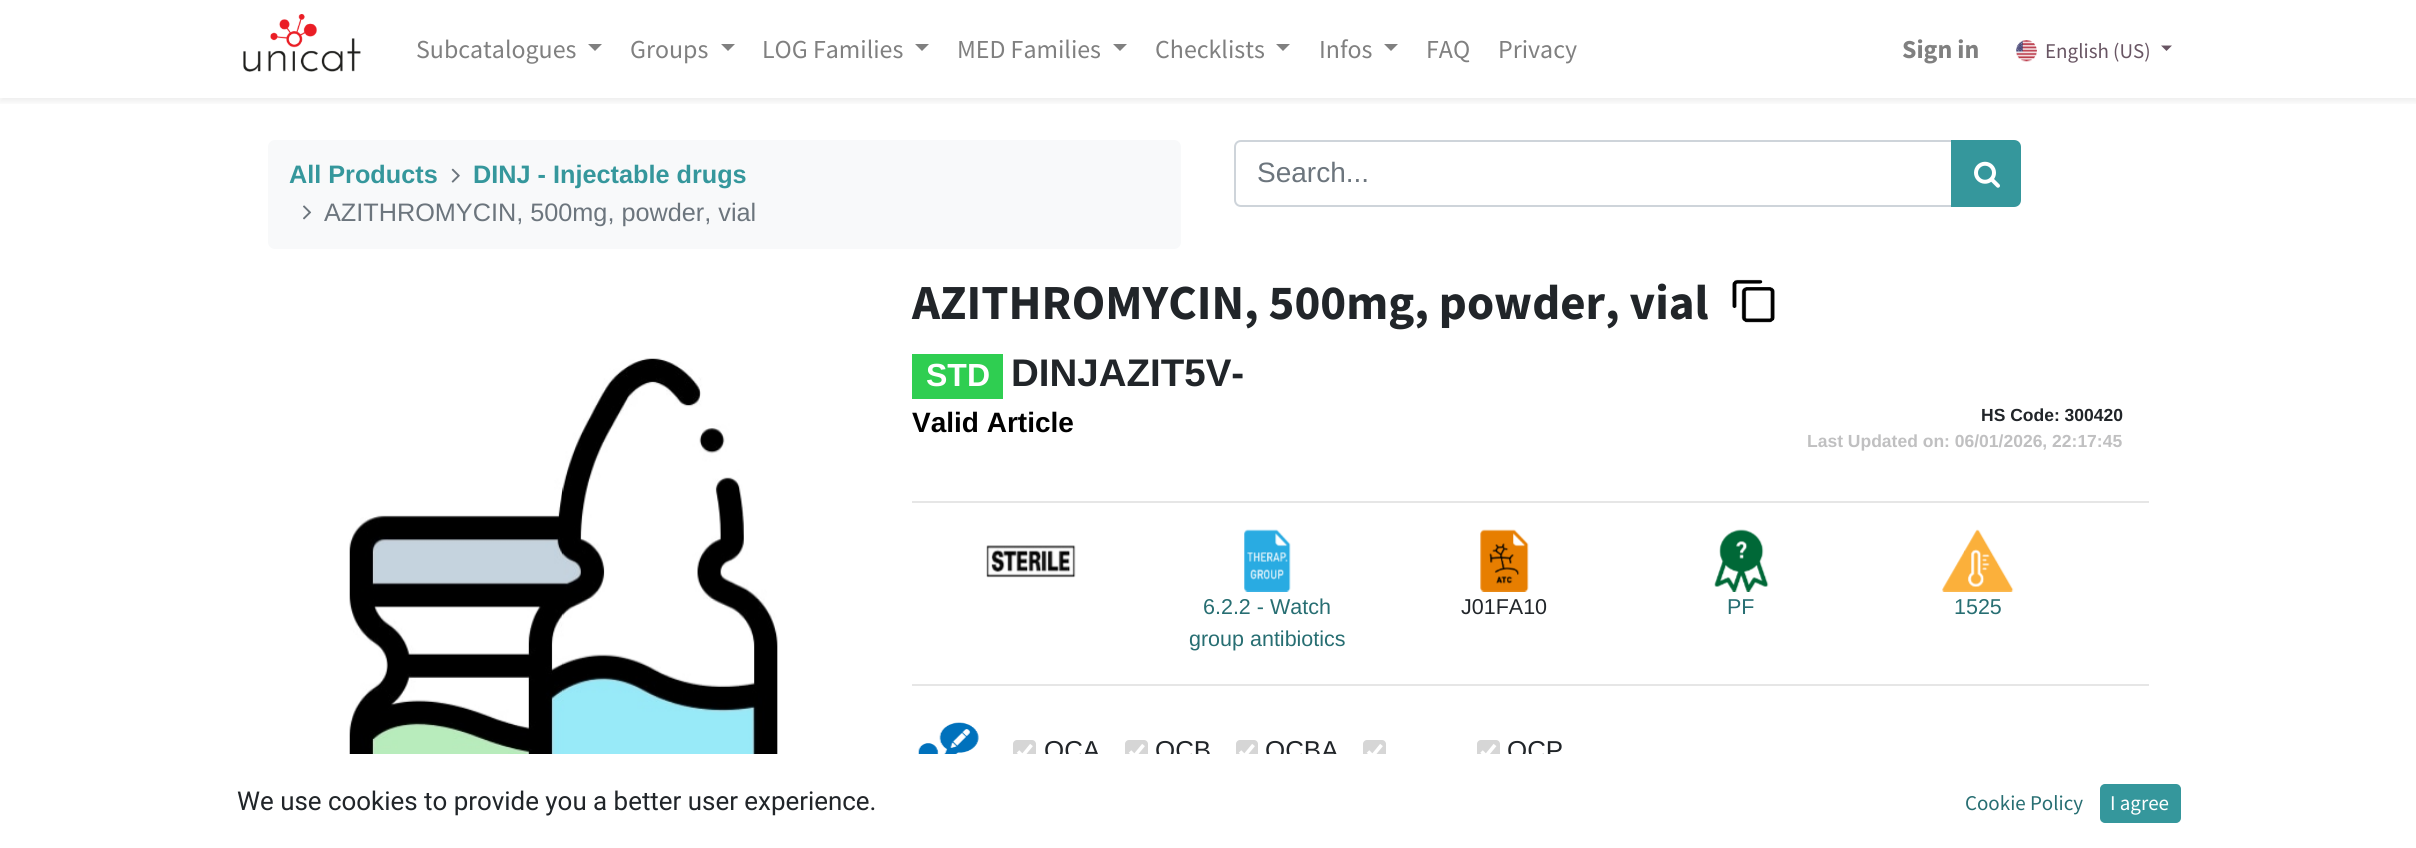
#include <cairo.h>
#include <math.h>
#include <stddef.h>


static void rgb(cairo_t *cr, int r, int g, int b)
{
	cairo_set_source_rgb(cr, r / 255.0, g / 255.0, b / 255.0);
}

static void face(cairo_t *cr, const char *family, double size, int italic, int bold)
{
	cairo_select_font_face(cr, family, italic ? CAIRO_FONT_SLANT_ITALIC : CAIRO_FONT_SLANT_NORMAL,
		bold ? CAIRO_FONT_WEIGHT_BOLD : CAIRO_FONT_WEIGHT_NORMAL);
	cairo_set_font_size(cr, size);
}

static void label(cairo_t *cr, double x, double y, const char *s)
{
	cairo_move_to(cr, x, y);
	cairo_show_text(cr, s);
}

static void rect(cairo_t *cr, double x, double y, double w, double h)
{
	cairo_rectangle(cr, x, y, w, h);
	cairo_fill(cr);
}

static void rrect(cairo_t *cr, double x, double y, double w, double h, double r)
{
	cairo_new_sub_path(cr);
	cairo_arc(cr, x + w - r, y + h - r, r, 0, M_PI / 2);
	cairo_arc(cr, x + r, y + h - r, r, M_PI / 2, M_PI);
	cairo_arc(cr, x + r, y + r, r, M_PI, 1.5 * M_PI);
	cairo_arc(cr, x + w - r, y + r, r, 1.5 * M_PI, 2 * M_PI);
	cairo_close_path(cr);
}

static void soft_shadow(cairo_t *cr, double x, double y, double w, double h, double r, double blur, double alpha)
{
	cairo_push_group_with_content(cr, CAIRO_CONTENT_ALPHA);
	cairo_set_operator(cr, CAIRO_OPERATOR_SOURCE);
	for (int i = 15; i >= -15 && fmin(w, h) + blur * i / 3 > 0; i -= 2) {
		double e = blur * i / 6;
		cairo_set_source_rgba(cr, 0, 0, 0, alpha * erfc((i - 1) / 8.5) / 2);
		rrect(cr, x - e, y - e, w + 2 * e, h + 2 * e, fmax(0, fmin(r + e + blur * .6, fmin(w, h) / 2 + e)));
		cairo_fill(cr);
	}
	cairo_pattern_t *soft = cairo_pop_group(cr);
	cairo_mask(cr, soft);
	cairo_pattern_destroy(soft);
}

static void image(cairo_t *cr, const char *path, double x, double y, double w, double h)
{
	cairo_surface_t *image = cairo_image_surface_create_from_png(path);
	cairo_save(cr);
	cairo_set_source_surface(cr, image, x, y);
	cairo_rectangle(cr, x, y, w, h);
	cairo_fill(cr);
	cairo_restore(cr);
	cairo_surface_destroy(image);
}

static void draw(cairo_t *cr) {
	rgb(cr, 255, 255, 255);
	cairo_paint(cr);
	cairo_save(cr);
	cairo_rectangle(cr, 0, 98, 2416, 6);
	cairo_clip(cr);
	rgb(cr, 0, 0, 0);
	soft_shadow(cr, 0, 4, 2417, 98, 0, 3.5, 0.07);
	cairo_restore(cr);
	image(cr, "image0.png", 243, 14, 118, 58);
	face(cr, "Source Sans Pro", 25.9, 0, 0);
	rgb(cr, 128, 128, 128);
	label(cr, 416, 58, "Subcatalogues");
	cairo_new_path(cr);
	cairo_move_to(cr, 588, 44);
	cairo_line_to(cr, 602, 44);
	cairo_line_to(cr, 595, 51);
	cairo_close_path(cr);
	cairo_fill(cr);
	label(cr, 630, 58, "Groups");
	cairo_new_path(cr);
	cairo_move_to(cr, 721, 44);
	cairo_line_to(cr, 735, 44);
	cairo_line_to(cr, 728, 51);
	cairo_close_path(cr);
	cairo_fill(cr);
	label(cr, 762, 58, "LOG Families");
	cairo_new_path(cr);
	cairo_move_to(cr, 915, 44);
	cairo_line_to(cr, 929, 44);
	cairo_line_to(cr, 922, 51);
	cairo_close_path(cr);
	cairo_fill(cr);
	label(cr, 957, 58, "MED Families");
	cairo_new_path(cr);
	cairo_move_to(cr, 1113, 44);
	cairo_line_to(cr, 1127, 44);
	cairo_line_to(cr, 1120, 51);
	cairo_close_path(cr);
	cairo_fill(cr);
	label(cr, 1155, 58, "Checklists");
	cairo_new_path(cr);
	cairo_move_to(cr, 1276, 44);
	cairo_line_to(cr, 1290, 44);
	cairo_line_to(cr, 1283, 51);
	cairo_close_path(cr);
	cairo_fill(cr);
	label(cr, 1319, 58, "Infos");
	cairo_new_path(cr);
	cairo_move_to(cr, 1384, 44);
	cairo_line_to(cr, 1398, 44);
	cairo_line_to(cr, 1391, 51);
	cairo_close_path(cr);
	cairo_fill(cr);
	label(cr, 1426, 58, "FAQ");
	label(cr, 1498, 58, "Privacy");
	face(cr, "Source Sans Pro", 25.9, 0, 1);
	label(cr, 1902, 58, "Sign in");
	image(cr, "image1.png", 2016, 40, 21, 22);
	face(cr, "Source Sans Pro", 21, 0, 0);
	rgb(cr, 104, 85, 99);
	label(cr, 2045, 58, "English (US)");
	cairo_new_path(cr);
	cairo_move_to(cr, 2161, 45.5);
	cairo_line_to(cr, 2172, 45.5);
	cairo_line_to(cr, 2166.5, 51);
	cairo_close_path(cr);
	cairo_fill(cr);
	rgb(cr, 248, 249, 250);
	rrect(cr, 268, 140, 913, 109, 7);
	cairo_fill(cr);
	face(cr, "Liberation Sans", 25.25, 0, 1);
	rgb(cr, 53, 151, 156);
	label(cr, 289, 183, "All Products");
	image(cr, "image2.png", 451, 168, 9, 15);
	label(cr, 473, 183, "DINJ - Injectable drugs");
	image(cr, "image3.png", 303, 205, 9, 15);
	face(cr, "Liberation Sans", 25.25, 0, 0);
	rgb(cr, 108, 117, 125);
	label(cr, 324, 221, "AZITHROMYCIN, 500mg, powder, vial");
	cairo_new_path(cr);
	cairo_move_to(cr, 1241, 141);
	cairo_line_to(cr, 1952, 141);
	cairo_line_to(cr, 1952, 206);
	cairo_line_to(cr, 1241, 206);
	cairo_curve_to(cr, 1237.5, 206, 1235, 203.5, 1235, 200);
	cairo_line_to(cr, 1235, 147);
	cairo_curve_to(cr, 1235, 143.5, 1237.5, 141, 1241, 141);
	cairo_close_path(cr);
	rgb(cr, 206, 212, 218);
	cairo_stroke(cr);
	face(cr, "Liberation Sans", 28, 0, 0);
	rgb(cr, 108, 117, 125);
	label(cr, 1257, 182, "Search...");
	rgb(cr, 53, 151, 156);
	cairo_new_path(cr);
	cairo_move_to(cr, 1952, 141);
	cairo_line_to(cr, 2014, 141);
	cairo_curve_to(cr, 2017.5, 141, 2020, 143.5, 2020, 147);
	cairo_line_to(cr, 2020, 200);
	cairo_curve_to(cr, 2020, 203.5, 2017.5, 206, 2014, 206);
	cairo_line_to(cr, 1952, 206);
	cairo_close_path(cr);
	cairo_fill_preserve(cr);
	cairo_stroke(cr);
	image(cr, "image4.png", 1974, 161, 26, 27);
	image(cr, "image5.png", 349, 358, 429, 396);
	face(cr, "Source Sans Pro", 49, 0, 1);
	rgb(cr, 33, 37, 41);
	label(cr, 912, 319, "AZITHROMYCIN, 500mg, powder, vial");
	image(cr, "image6.png", 1732, 279, 43, 44);
	rgb(cr, 47, 206, 81);
	rect(cr, 912, 354, 91, 45);
	face(cr, "Liberation Sans", 32, 0, 1);
	rgb(cr, 255, 255, 255);
	label(cr, 926, 386, "STD");
	face(cr, "Liberation Sans", 38.5, 0, 1);
	rgb(cr, 33, 37, 41);
	label(cr, 1011, 386, "DINJAZIT5V-");
	face(cr, "Liberation Sans", 28, 0, 1);
	rgb(cr, 0, 0, 0);
	label(cr, 912, 432, "Valid Article");
	face(cr, "Liberation Sans", 17.5, 0, 1);
	rgb(cr, 33, 37, 41);
	label(cr, 1981, 421, "HS Code: 300420");
	rgb(cr, 192, 192, 193);
	label(cr, 1807, 447, "Last Updated on: 06/01/2026, 22:17:45");
	rgb(cr, 230, 230, 230);
	rect(cr, 912, 501, 1237, 2);
	image(cr, "image7.png", 986, 545, 90, 33);
	image(cr, "image8.png", 1244, 529, 47, 63);
	face(cr, "Liberation Sans", 21.5, 0, 0);
	rgb(cr, 39, 110, 114);
	label(cr, 1203, 614, "6.2.2 - Watch");
	label(cr, 1189, 646, "group antibiotics");
	image(cr, "image9.png", 1480, 529, 49, 63);
	rgb(cr, 33, 37, 41);
	label(cr, 1461, 614, "J01FA10");
	image(cr, "image10.png", 1714, 529, 55, 63);
	rgb(cr, 39, 110, 114);
	label(cr, 1727, 614, "PF");
	image(cr, "image11.png", 1942, 529, 72, 63);
	label(cr, 1954, 614, "1525");
	rgb(cr, 230, 230, 230);
	rect(cr, 912, 684, 1237, 2);
	image(cr, "image12.png", 912, 722, 67, 32);
	rgb(cr, 214, 214, 214);
	rrect(cr, 1013, 740, 23, 23, 4);
	cairo_fill(cr);
	cairo_new_path(cr);
	cairo_move_to(cr, 1018, 751.5);
	cairo_line_to(cr, 1022.5, 756);
	cairo_line_to(cr, 1031.5, 745);
	rgb(cr, 255, 255, 255);
	cairo_set_line_width(cr, 3.6);
	cairo_stroke(cr);
	face(cr, "Liberation Sans", 25.9, 0, 0);
	rgb(cr, 33, 37, 41);
	label(cr, 1044, 759, "OCA");
	rgb(cr, 214, 214, 214);
	rrect(cr, 1125, 740, 23, 23, 4);
	cairo_fill(cr);
	cairo_new_path(cr);
	cairo_move_to(cr, 1130, 751.5);
	cairo_line_to(cr, 1134.5, 756);
	cairo_line_to(cr, 1143.5, 745);
	rgb(cr, 255, 255, 255);
	cairo_stroke(cr);
	rgb(cr, 33, 37, 41);
	label(cr, 1155, 759, "OCB");
	rgb(cr, 214, 214, 214);
	rrect(cr, 1236, 740, 22, 23, 4);
	cairo_fill(cr);
	cairo_new_path(cr);
	cairo_move_to(cr, 1240, 751.5);
	cairo_line_to(cr, 1244.5, 756);
	cairo_line_to(cr, 1253.5, 745);
	rgb(cr, 255, 255, 255);
	cairo_stroke(cr);
	rgb(cr, 33, 37, 41);
	label(cr, 1265, 759, "OCBA");
	rgb(cr, 214, 214, 214);
	rrect(cr, 1363, 740, 23, 23, 4);
	cairo_fill(cr);
	cairo_new_path(cr);
	cairo_move_to(cr, 1368, 751.5);
	cairo_line_to(cr, 1372.5, 756);
	cairo_line_to(cr, 1381.5, 745);
	rgb(cr, 255, 255, 255);
	cairo_stroke(cr);
	rgb(cr, 214, 214, 214);
	rrect(cr, 1477, 740, 23, 23, 4);
	cairo_fill(cr);
	cairo_new_path(cr);
	cairo_move_to(cr, 1481.5, 751.5);
	cairo_line_to(cr, 1486, 756);
	cairo_line_to(cr, 1495, 745);
	rgb(cr, 255, 255, 255);
	cairo_stroke(cr);
	rgb(cr, 33, 37, 41);
	label(cr, 1507, 759, "OCP");
	rgb(cr, 255, 255, 255);
	rect(cr, 1013, 754, 538, 9);
	face(cr, "Roboto", 25.9, 0, 0);
	rgb(cr, 33, 37, 41);
	label(cr, 237, 810, "We use cookies to provide you a better user experience.");
	face(cr, "Source Sans Pro", 21, 0, 0);
	rgb(cr, 39, 110, 114);
	label(cr, 1965, 810, "Cookie Policy");
	rgb(cr, 53, 151, 156);
	rrect(cr, 2101, 785, 79, 37, 4);
	cairo_fill_preserve(cr);
	cairo_set_line_width(cr, 2);
	cairo_stroke(cr);
	rgb(cr, 255, 255, 255);
	label(cr, 2110, 810, "I agree");
}

int main(void) {
	cairo_surface_t *surface = cairo_image_surface_create(CAIRO_FORMAT_RGB24, 2416, 848);
	cairo_t *cr = cairo_create(surface);
	cairo_font_options_t *options = cairo_font_options_create();
	cairo_font_options_set_hint_metrics(options, CAIRO_HINT_METRICS_OFF);
	cairo_font_options_set_hint_style(options, CAIRO_HINT_STYLE_NONE);
	cairo_set_font_options(cr, options);
	cairo_set_miter_limit(cr, 4);
	draw(cr);
	cairo_surface_write_to_png(surface, "render.png");
	cairo_font_options_destroy(options);
	cairo_destroy(cr);
	cairo_surface_destroy(surface);
	return 0;
}
